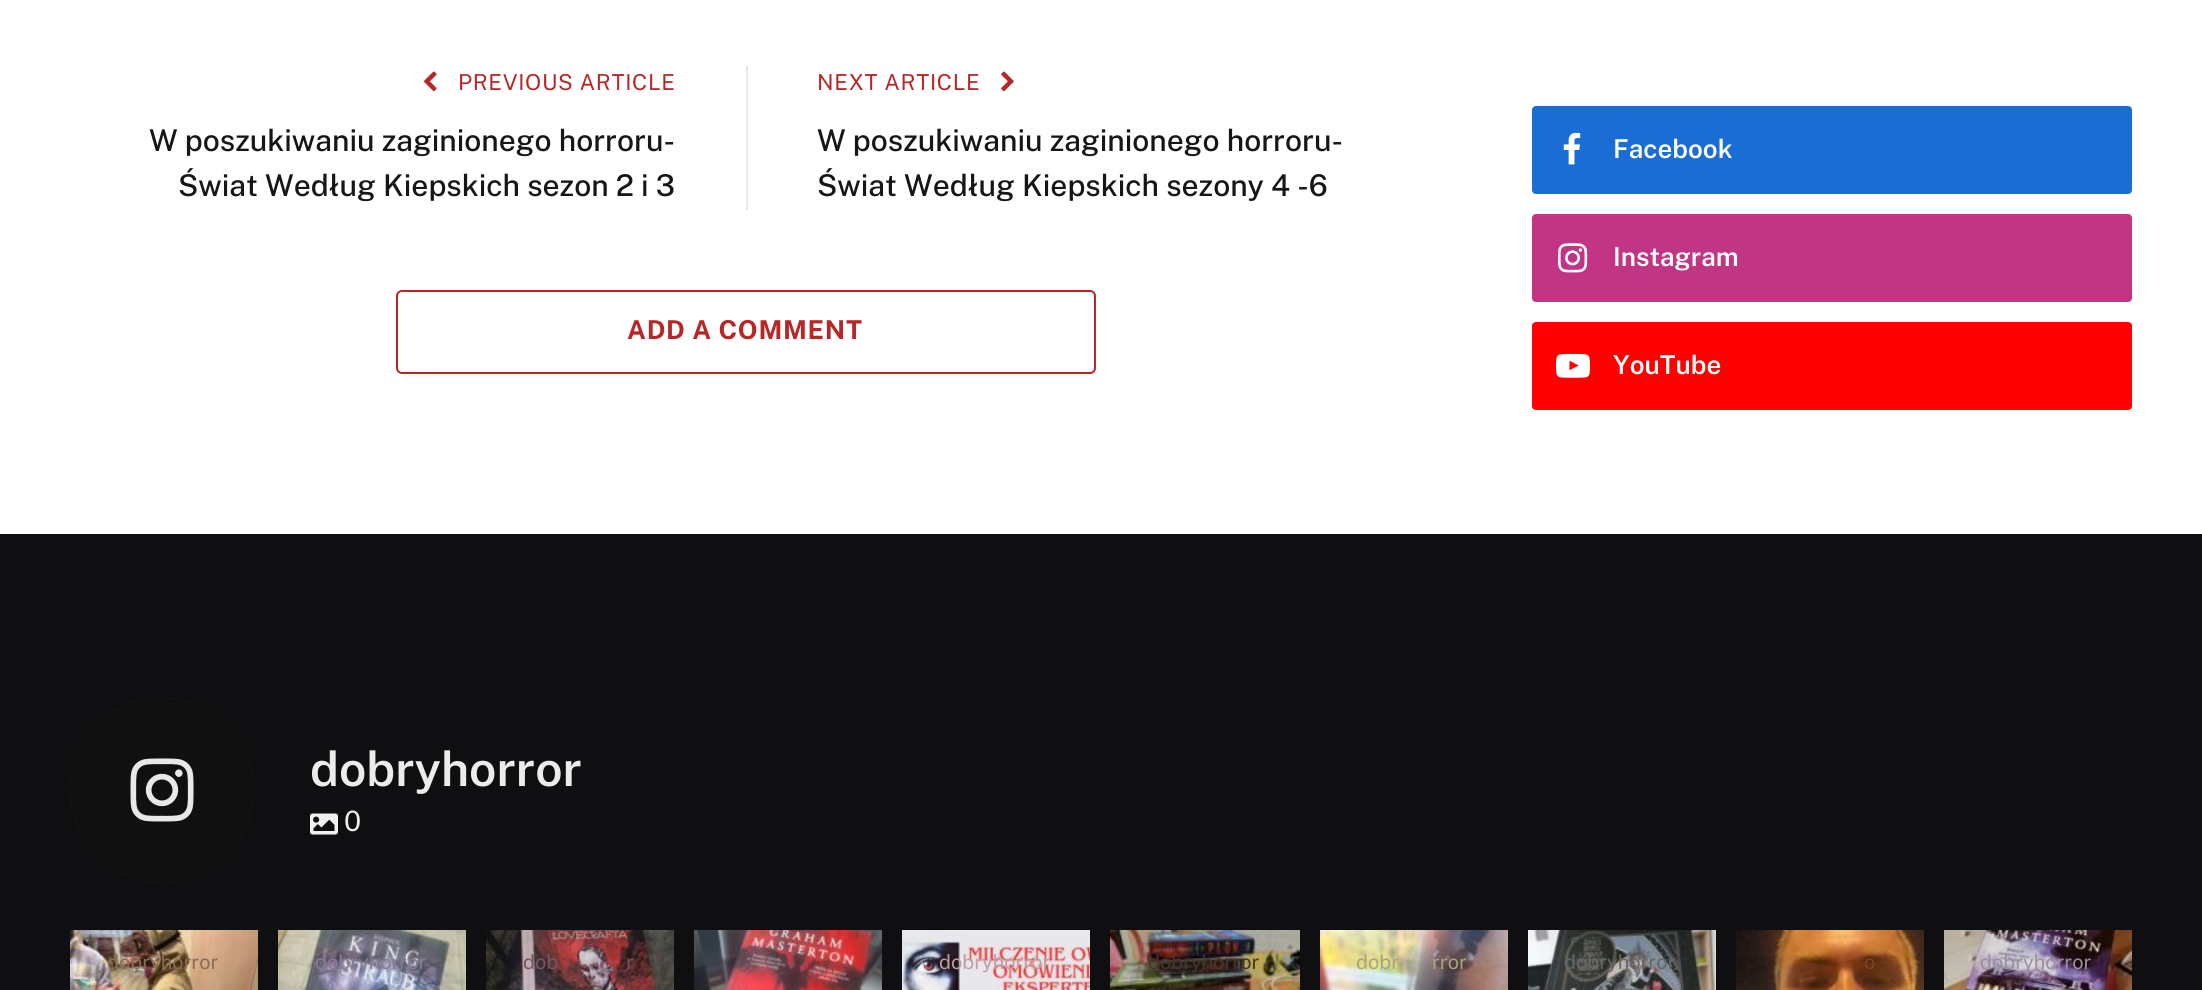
#include <cairo.h>
#include <math.h>
#include <stddef.h>


static void rgb(cairo_t *cr, int r, int g, int b)
{
	cairo_set_source_rgb(cr, r / 255.0, g / 255.0, b / 255.0);
}

static void face(cairo_t *cr, const char *family, double size, int italic, int bold)
{
	cairo_select_font_face(cr, family, italic ? CAIRO_FONT_SLANT_ITALIC : CAIRO_FONT_SLANT_NORMAL,
		bold ? CAIRO_FONT_WEIGHT_BOLD : CAIRO_FONT_WEIGHT_NORMAL);
	cairo_set_font_size(cr, size);
}

static void label(cairo_t *cr, double x, double y, const char *s)
{
	cairo_move_to(cr, x, y);
	cairo_show_text(cr, s);
}

static void tracked(cairo_t *cr, double x, double y, const char *s, double letter, double word)
{
	cairo_move_to(cr, x, y);
	while (*s) {
		char ch[5] = {0};
		int n = 0;
		do ch[n++] = *s++; while ((*s & 0xC0) == 0x80);
		cairo_show_text(cr, ch);
		cairo_rel_move_to(cr, letter + word * (*ch == ' '), 0);
	}
}

static void rect(cairo_t *cr, double x, double y, double w, double h)
{
	cairo_rectangle(cr, x, y, w, h);
	cairo_fill(cr);
}

static void rrect(cairo_t *cr, double x, double y, double w, double h, double r)
{
	cairo_new_sub_path(cr);
	cairo_arc(cr, x + w - r, y + h - r, r, 0, M_PI / 2);
	cairo_arc(cr, x + r, y + h - r, r, M_PI / 2, M_PI);
	cairo_arc(cr, x + r, y + r, r, M_PI, 1.5 * M_PI);
	cairo_arc(cr, x + w - r, y + r, r, 1.5 * M_PI, 2 * M_PI);
	cairo_close_path(cr);
}

static void soft_shadow(cairo_t *cr, double x, double y, double w, double h, double r, double blur, double alpha)
{
	cairo_push_group_with_content(cr, CAIRO_CONTENT_ALPHA);
	cairo_set_operator(cr, CAIRO_OPERATOR_SOURCE);
	for (int i = 15; i >= -15 && fmin(w, h) + blur * i / 3 > 0; i -= 2) {
		double e = blur * i / 6;
		cairo_set_source_rgba(cr, 0, 0, 0, alpha * erfc((i - 1) / 8.5) / 2);
		rrect(cr, x - e, y - e, w + 2 * e, h + 2 * e, fmax(0, fmin(r + e + blur * .6, fmin(w, h) / 2 + e)));
		cairo_fill(cr);
	}
	cairo_pattern_t *soft = cairo_pop_group(cr);
	cairo_mask(cr, soft);
	cairo_pattern_destroy(soft);
}

static void image(cairo_t *cr, const char *path, double x, double y, double w, double h)
{
	cairo_surface_t *image = cairo_image_surface_create_from_png(path);
	cairo_save(cr);
	cairo_set_source_surface(cr, image, x, y);
	cairo_rectangle(cr, x, y, w, h);
	cairo_fill(cr);
	cairo_restore(cr);
	cairo_surface_destroy(image);
}

static void draw(cairo_t *cr) {
	rgb(cr, 255, 255, 255);
	cairo_paint(cr);
	image(cr, "image0.png", 423, 71, 14, 21);
	face(cr, "Public Sans", 22, 0, 0);
	rgb(cr, 184, 39, 39);
	tracked(cr, 458, 90, "PREVIOUS ARTICLE", 0.7, 0);
	face(cr, "Public Sans Medium", 30, 0, 0);
	rgb(cr, 22, 22, 22);
	label(cr, 149, 151, "W poszukiwaniu zaginionego horroru-");
	label(cr, 178, 196, "Świat Według Kiepskich sezon 2 i 3");
	rgb(cr, 232, 232, 232);
	rect(cr, 746, 66, 2, 144);
	face(cr, "Public Sans", 22, 0, 0);
	rgb(cr, 184, 39, 39);
	tracked(cr, 817, 90, "NEXT ARTICLE", 0.7, 0);
	image(cr, "image1.png", 1001, 71, 13, 21);
	face(cr, "Public Sans Medium", 30, 0, 0);
	rgb(cr, 22, 22, 22);
	label(cr, 817, 151, "W poszukiwaniu zaginionego horroru-");
	label(cr, 817, 196, "Świat Według Kiepskich sezony 4 -6");
	cairo_save(cr);
	cairo_rectangle(cr, 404, 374, 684, 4);
	cairo_clip(cr);
	rgb(cr, 0, 0, 0);
	soft_shadow(cr, 404, 302, 684, 68, 0, 7, 0.16);
	cairo_restore(cr);
	rrect(cr, 397, 291, 698, 82, 5);
	rgb(cr, 184, 39, 39);
	cairo_stroke(cr);
	face(cr, "Public Sans", 26, 0, 1);
	tracked(cr, 627, 339, "ADD A COMMENT", 0.75, 0);
	rgb(cr, 26, 109, 212);
	rrect(cr, 1532, 106, 600, 88, 4);
	cairo_fill(cr);
	image(cr, "image2.png", 1563, 132, 18, 33);
	face(cr, "Public Sans SemiBold", 26, 0, 0);
	rgb(cr, 255, 255, 255);
	label(cr, 1613, 158, "Facebook");
	rgb(cr, 193, 53, 132);
	rrect(cr, 1532, 214, 600, 88, 4);
	cairo_fill(cr);
	image(cr, "image3.png", 1558, 243, 30, 30);
	rgb(cr, 255, 255, 255);
	label(cr, 1613, 266, "Instagram");
	rgb(cr, 255, 0, 0);
	rrect(cr, 1532, 322, 600, 88, 4);
	cairo_fill(cr);
	image(cr, "image4.png", 1556, 353, 34, 25);
	rgb(cr, 255, 255, 255);
	label(cr, 1613, 374, "YouTube");
	rgb(cr, 15, 15, 17);
	rect(cr, 0, 534, 2202, 456);
	rgb(cr, 51, 51, 51);
	cairo_new_path(cr);
	cairo_arc(cr, 162, 790, 92, 0, 2 * M_PI);
	cairo_fill(cr);
	cairo_set_source_rgba(cr, 0, 0, 0, 0.68);
	cairo_arc(cr, 162, 790, 92, 0, 2 * M_PI);
	cairo_fill(cr);
	image(cr, "image5.png", 130, 758, 64, 64);
	face(cr, "Public Sans SemiBold", 48, 0, 0);
	rgb(cr, 236, 236, 236);
	label(cr, 310, 786, "dobryhorror");
	image(cr, "image6.png", 310, 813, 28, 22);
	face(cr, "Public Sans", 28, 0, 0);
	label(cr, 344, 831, "0");
	image(cr, "image7.png", 70, 930, 188, 60);
	face(cr, "Public Sans", 20, 0, 0);
	rgb(cr, 138, 109, 85);
	label(cr, 107, 969, "dobryhorror");
	image(cr, "image8.png", 278, 930, 188, 60);
	rgb(cr, 131, 126, 147);
	label(cr, 315, 969, "dobryhorror");
	image(cr, "image9.png", 486, 930, 188, 60);
	rgb(cr, 124, 83, 88);
	label(cr, 523, 969, "dob");
	label(cr, 626, 969, "r");
	image(cr, "image10.png", 694, 930, 188, 60);
	image(cr, "image11.png", 902, 930, 188, 60);
	rgb(cr, 191, 157, 163);
	label(cr, 939, 969, "dobryhorror");
	image(cr, "image12.png", 1110, 930, 190, 60);
	rgb(cr, 69, 55, 40);
	label(cr, 1148, 969, "dobryhorror");
	image(cr, "image13.png", 1320, 930, 188, 60);
	rgb(cr, 169, 163, 127);
	label(cr, 1356, 969, "dobr");
	label(cr, 1432, 969, "rror");
	image(cr, "image14.png", 1528, 930, 188, 60);
	rgb(cr, 102, 104, 103);
	label(cr, 1564, 969, "dobryhorror");
	image(cr, "image15.png", 1736, 930, 188, 60);
	rgb(cr, 127, 67, 28);
	label(cr, 1864, 969, "o");
	image(cr, "image16.png", 1944, 930, 188, 60);
	rgb(cr, 154, 142, 160);
	label(cr, 1980, 969, "dobryhorror");
}

int main(void) {
	cairo_surface_t *surface = cairo_image_surface_create(CAIRO_FORMAT_RGB24, 2202, 990);
	cairo_t *cr = cairo_create(surface);
	cairo_font_options_t *options = cairo_font_options_create();
	cairo_font_options_set_hint_metrics(options, CAIRO_HINT_METRICS_OFF);
	cairo_font_options_set_hint_style(options, CAIRO_HINT_STYLE_NONE);
	cairo_set_font_options(cr, options);
	cairo_set_miter_limit(cr, 4);
	draw(cr);
	cairo_surface_write_to_png(surface, "render.png");
	cairo_font_options_destroy(options);
	cairo_destroy(cr);
	cairo_surface_destroy(surface);
	return 0;
}
